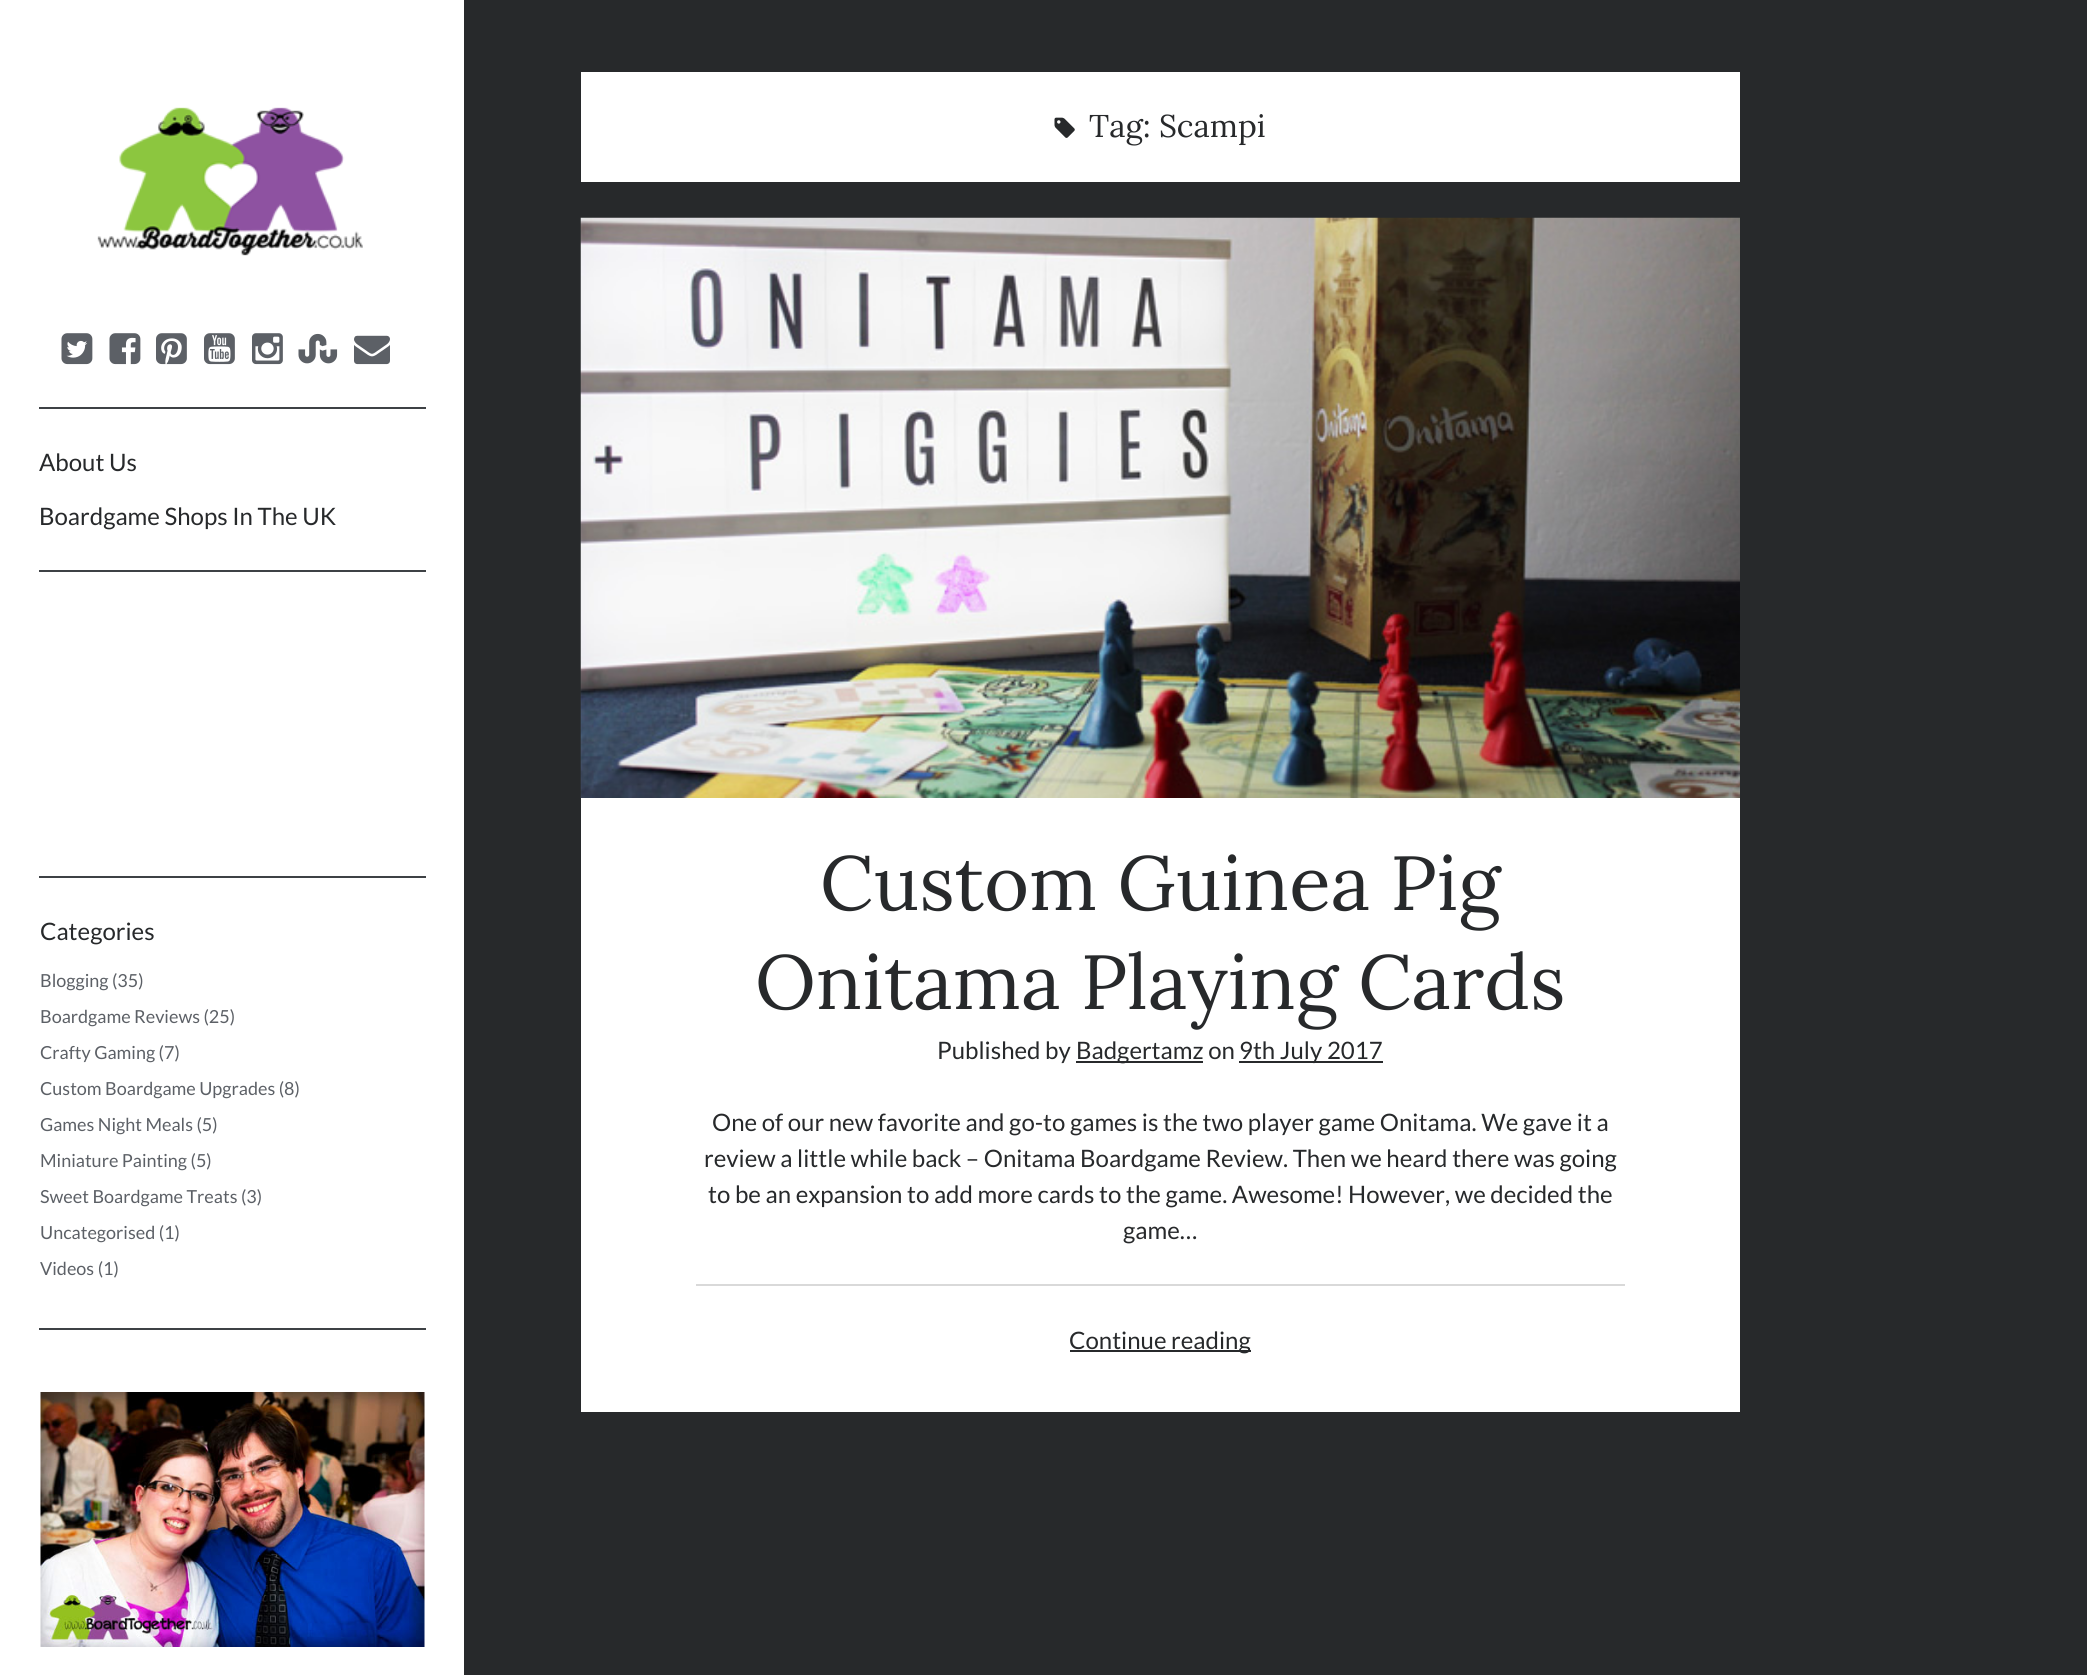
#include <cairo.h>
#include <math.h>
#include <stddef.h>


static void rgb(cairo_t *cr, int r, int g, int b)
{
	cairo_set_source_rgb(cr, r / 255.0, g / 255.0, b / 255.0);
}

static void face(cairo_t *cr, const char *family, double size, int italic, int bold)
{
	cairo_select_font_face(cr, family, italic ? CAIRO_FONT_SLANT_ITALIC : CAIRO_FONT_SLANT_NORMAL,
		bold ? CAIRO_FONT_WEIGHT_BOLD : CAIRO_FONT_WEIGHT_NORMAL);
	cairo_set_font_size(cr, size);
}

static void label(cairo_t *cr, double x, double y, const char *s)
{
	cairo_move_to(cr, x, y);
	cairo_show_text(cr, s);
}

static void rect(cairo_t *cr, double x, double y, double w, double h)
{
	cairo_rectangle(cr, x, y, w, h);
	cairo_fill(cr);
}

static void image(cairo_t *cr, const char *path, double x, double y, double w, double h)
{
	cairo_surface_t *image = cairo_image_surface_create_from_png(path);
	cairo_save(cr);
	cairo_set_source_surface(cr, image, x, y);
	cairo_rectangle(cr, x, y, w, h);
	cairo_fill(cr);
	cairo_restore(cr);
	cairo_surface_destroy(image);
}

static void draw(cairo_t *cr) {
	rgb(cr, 255, 255, 255);
	cairo_paint(cr);
	image(cr, "image0.png", 97, 107, 266, 149);
	image(cr, "image1.png", 61, 333, 32, 32);
	image(cr, "image2.png", 109, 333, 32, 32);
	image(cr, "image3.png", 156, 333, 31, 32);
	image(cr, "image4.png", 204, 333, 31, 32);
	image(cr, "image5.png", 252, 333, 31, 32);
	image(cr, "image6.png", 298, 333, 40, 31);
	image(cr, "image7.png", 354, 335, 36, 30);
	rgb(cr, 62, 65, 69);
	rect(cr, 39, 407, 387, 2);
	face(cr, "Lato", 24, 0, 0);
	rgb(cr, 39, 41, 43);
	label(cr, 39, 471, "About Us");
	label(cr, 39, 525, "Boardgame Shops In The UK");
	rgb(cr, 62, 65, 69);
	rect(cr, 39, 570, 387, 2);
	rect(cr, 39, 876, 387, 2);
	rgb(cr, 39, 41, 43);
	label(cr, 40, 940, "Categories");
	face(cr, "Lato", 18, 0, 0);
	rgb(cr, 92, 96, 102);
	label(cr, 40, 987, "Blogging (35)");
	label(cr, 40, 1023, "Boardgame Reviews (25)");
	label(cr, 40, 1059, "Crafty Gaming (7)");
	label(cr, 40, 1095, "Custom Boardgame Upgrades (8)");
	label(cr, 40, 1131, "Games Night Meals (5)");
	label(cr, 40, 1167, "Miniature Painting (5)");
	label(cr, 40, 1203, "Sweet Boardgame Treats (3)");
	label(cr, 40, 1239, "Uncategorised (1)");
	label(cr, 40, 1275, "Videos (1)");
	rgb(cr, 62, 65, 69);
	rect(cr, 39, 1328, 387, 2);
	image(cr, "image8.png", 40, 1392, 385, 255);
	rgb(cr, 39, 41, 43);
	rect(cr, 464, 0, 1623, 1675);
	rgb(cr, 255, 255, 255);
	rect(cr, 581, 72, 1159, 110);
	image(cr, "image9.png", 1054, 117, 21, 21);
	face(cr, "Lora", 31.5, 0, 0);
	rgb(cr, 39, 41, 43);
	label(cr, 1089, 137, "Tag: Scampi");
	image(cr, "image10.png", 580, 217, 1160, 581);
	rgb(cr, 255, 255, 255);
	rect(cr, 581, 798, 1159, 614);
	face(cr, "Lora", 76.5, 0, 0);
	rgb(cr, 39, 41, 43);
	label(cr, 820, 910, "Custom Guinea Pig");
	label(cr, 755, 1009, "Onitama Playing Cards");
	face(cr, "Lato", 24, 0, 0);
	label(cr, 937, 1059, "Published by");
	rect(cr, 1076, 1061, 127, 2);
	label(cr, 1076, 1059, "Badgertamz on");
	rect(cr, 1239, 1061, 144, 2);
	label(cr, 1239, 1059, "9th July 2017");
	label(cr, 712, 1131, "One of our new favorite and go-to games is the two player game Onitama. We gave it a");
	label(cr, 704, 1167, "review a little while back – Onitama Boardgame Review. Then we heard there was going");
	label(cr, 708, 1203, "to be an expansion to add more cards to the game. Awesome! However, we decided the");
	label(cr, 1123, 1239, "game…");
	rgb(cr, 217, 217, 217);
	rect(cr, 696, 1284, 929, 2);
	rgb(cr, 39, 41, 43);
	rect(cr, 1070, 1350, 181, 2);
	label(cr, 1069, 1349, "Continue reading");
}

int main(void) {
	cairo_surface_t *surface = cairo_image_surface_create(CAIRO_FORMAT_RGB24, 2087, 1675);
	cairo_t *cr = cairo_create(surface);
	cairo_font_options_t *options = cairo_font_options_create();
	cairo_font_options_set_hint_metrics(options, CAIRO_HINT_METRICS_OFF);
	cairo_font_options_set_hint_style(options, CAIRO_HINT_STYLE_NONE);
	cairo_set_font_options(cr, options);
	cairo_set_miter_limit(cr, 4);
	draw(cr);
	cairo_surface_write_to_png(surface, "render.png");
	cairo_font_options_destroy(options);
	cairo_destroy(cr);
	cairo_surface_destroy(surface);
	return 0;
}
